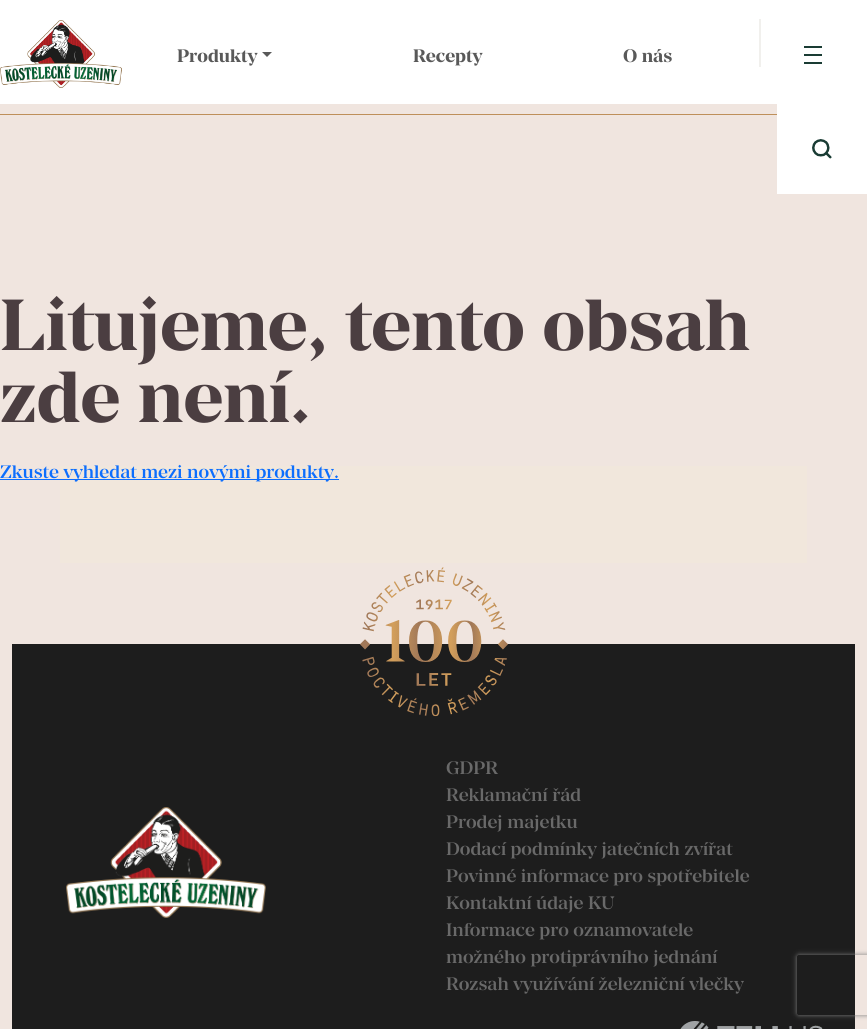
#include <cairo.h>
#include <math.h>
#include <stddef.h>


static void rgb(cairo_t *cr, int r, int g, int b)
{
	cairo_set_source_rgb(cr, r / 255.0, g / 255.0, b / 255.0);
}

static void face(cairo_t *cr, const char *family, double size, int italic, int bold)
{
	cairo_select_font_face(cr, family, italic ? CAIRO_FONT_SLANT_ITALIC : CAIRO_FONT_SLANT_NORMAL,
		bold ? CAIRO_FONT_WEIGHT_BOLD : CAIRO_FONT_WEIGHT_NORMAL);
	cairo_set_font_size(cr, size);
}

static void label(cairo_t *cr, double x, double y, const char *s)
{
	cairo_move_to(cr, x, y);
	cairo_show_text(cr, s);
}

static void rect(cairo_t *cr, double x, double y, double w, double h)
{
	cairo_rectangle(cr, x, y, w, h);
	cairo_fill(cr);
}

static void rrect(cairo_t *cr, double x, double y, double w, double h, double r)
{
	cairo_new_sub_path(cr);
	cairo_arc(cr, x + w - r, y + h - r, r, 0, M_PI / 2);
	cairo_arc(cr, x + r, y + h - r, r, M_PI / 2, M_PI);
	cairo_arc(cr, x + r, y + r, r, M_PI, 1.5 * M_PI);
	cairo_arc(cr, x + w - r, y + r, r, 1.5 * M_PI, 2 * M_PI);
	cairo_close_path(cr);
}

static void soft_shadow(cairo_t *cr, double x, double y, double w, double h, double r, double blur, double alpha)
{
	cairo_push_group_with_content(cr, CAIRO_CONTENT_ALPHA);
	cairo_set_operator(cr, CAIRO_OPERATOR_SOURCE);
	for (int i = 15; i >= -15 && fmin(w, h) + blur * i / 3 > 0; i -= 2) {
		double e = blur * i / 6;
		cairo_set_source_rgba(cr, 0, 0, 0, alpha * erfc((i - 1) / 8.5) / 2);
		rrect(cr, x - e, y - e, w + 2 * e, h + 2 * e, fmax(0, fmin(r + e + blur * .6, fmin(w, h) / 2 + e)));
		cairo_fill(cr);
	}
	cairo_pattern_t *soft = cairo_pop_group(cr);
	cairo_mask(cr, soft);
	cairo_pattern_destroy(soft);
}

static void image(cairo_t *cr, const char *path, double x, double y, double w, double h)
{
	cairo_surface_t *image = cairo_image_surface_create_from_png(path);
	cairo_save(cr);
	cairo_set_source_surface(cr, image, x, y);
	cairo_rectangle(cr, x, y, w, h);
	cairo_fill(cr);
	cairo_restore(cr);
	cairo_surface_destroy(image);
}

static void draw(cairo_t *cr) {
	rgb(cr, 240, 229, 223);
	cairo_paint(cr);
	rgb(cr, 255, 255, 255);
	rect(cr, 0, 0, 867, 104);
	image(cr, "image0.png", 0, 20, 122, 68);
	face(cr, "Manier", 18, 0, 1);
	rgb(cr, 89, 89, 89);
	label(cr, 177, 62, "Produkty");
	cairo_new_path(cr);
	cairo_move_to(cr, 262, 52);
	cairo_line_to(cr, 272, 52);
	cairo_line_to(cr, 267, 57);
	cairo_close_path(cr);
	cairo_fill(cr);
	label(cr, 413, 62, "Recepty");
	label(cr, 623, 62, "O nás");
	rgb(cr, 241, 240, 237);
	rect(cr, 759, 19, 2, 48);
	rgb(cr, 26, 60, 52);
	rect(cr, 804, 46, 18, 2);
	rect(cr, 804, 54, 18, 2);
	rect(cr, 804, 62, 18, 2);
	rgb(cr, 190, 143, 90);
	rect(cr, 0, 114, 777, 1);
	rgb(cr, 255, 255, 255);
	rect(cr, 777, 104, 90, 90);
	image(cr, "image1.png", 812, 139, 20, 20);
	face(cr, "Manier", 72, 0, 1);
	rgb(cr, 75, 62, 65);
	label(cr, 0, 350, "Litujeme, tento obsah");
	label(cr, 0, 422, "zde není.");
	rgb(cr, 241, 231, 220);
	rect(cr, 60, 466, 747, 97);
	rgb(cr, 13, 110, 253);
	rect(cr, 0, 479, 339, 1);
	face(cr, "Manier Medium", 18, 0, 0);
	label(cr, 0, 478, "Zkuste vyhledat mezi novými produkty.");
	rgb(cr, 29, 29, 29);
	rect(cr, 12, 644, 843, 385);
	image(cr, "image2.png", 360, 567, 148, 150);
	image(cr, "image3.png", 66, 807, 200, 111);
	rgb(cr, 105, 105, 105);
	label(cr, 446, 774, "GDPR");
	label(cr, 446, 801, "Reklamační řád");
	label(cr, 446, 828, "Prodej majetku");
	label(cr, 446, 855, "Dodací podmínky jatečních zvířat");
	label(cr, 446, 882, "Povinné informace pro spotřebitele");
	label(cr, 446, 909, "Kontaktní údaje KU");
	label(cr, 446, 936, "Informace pro oznamovatele");
	label(cr, 446, 963, "možného protiprávního jednání");
	label(cr, 446, 990, "Rozsah využívání železniční vlečky");
	image(cr, "image4.png", 680, 1021, 143, 8);
	cairo_save(cr);
	cairo_set_fill_rule(cr, CAIRO_FILL_RULE_EVEN_ODD);
	cairo_new_path(cr);
	cairo_move_to(cr, 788, 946);
	cairo_line_to(cr, 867, 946);
	cairo_line_to(cr, 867, 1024);
	cairo_line_to(cr, 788, 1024);
	cairo_close_path(cr);
	cairo_move_to(cr, 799, 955);
	cairo_line_to(cr, 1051, 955);
	cairo_curve_to(cr, 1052, 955, 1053, 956, 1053, 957);
	cairo_line_to(cr, 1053, 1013);
	cairo_curve_to(cr, 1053, 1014, 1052, 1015, 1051, 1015);
	cairo_line_to(cr, 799, 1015);
	cairo_curve_to(cr, 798, 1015, 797, 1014, 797, 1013);
	cairo_line_to(cr, 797, 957);
	cairo_curve_to(cr, 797, 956, 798, 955, 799, 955);
	cairo_close_path(cr);
	cairo_clip(cr);
	rgb(cr, 128, 128, 128);
	soft_shadow(cr, 797, 955, 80, 60, 2, 2.5, 1);
	cairo_restore(cr);
}

int main(void) {
	cairo_surface_t *surface = cairo_image_surface_create(CAIRO_FORMAT_RGB24, 867, 1029);
	cairo_t *cr = cairo_create(surface);
	cairo_font_options_t *options = cairo_font_options_create();
	cairo_font_options_set_hint_metrics(options, CAIRO_HINT_METRICS_OFF);
	cairo_font_options_set_hint_style(options, CAIRO_HINT_STYLE_NONE);
	cairo_set_font_options(cr, options);
	cairo_set_miter_limit(cr, 4);
	draw(cr);
	cairo_surface_write_to_png(surface, "render.png");
	cairo_font_options_destroy(options);
	cairo_destroy(cr);
	cairo_surface_destroy(surface);
	return 0;
}
